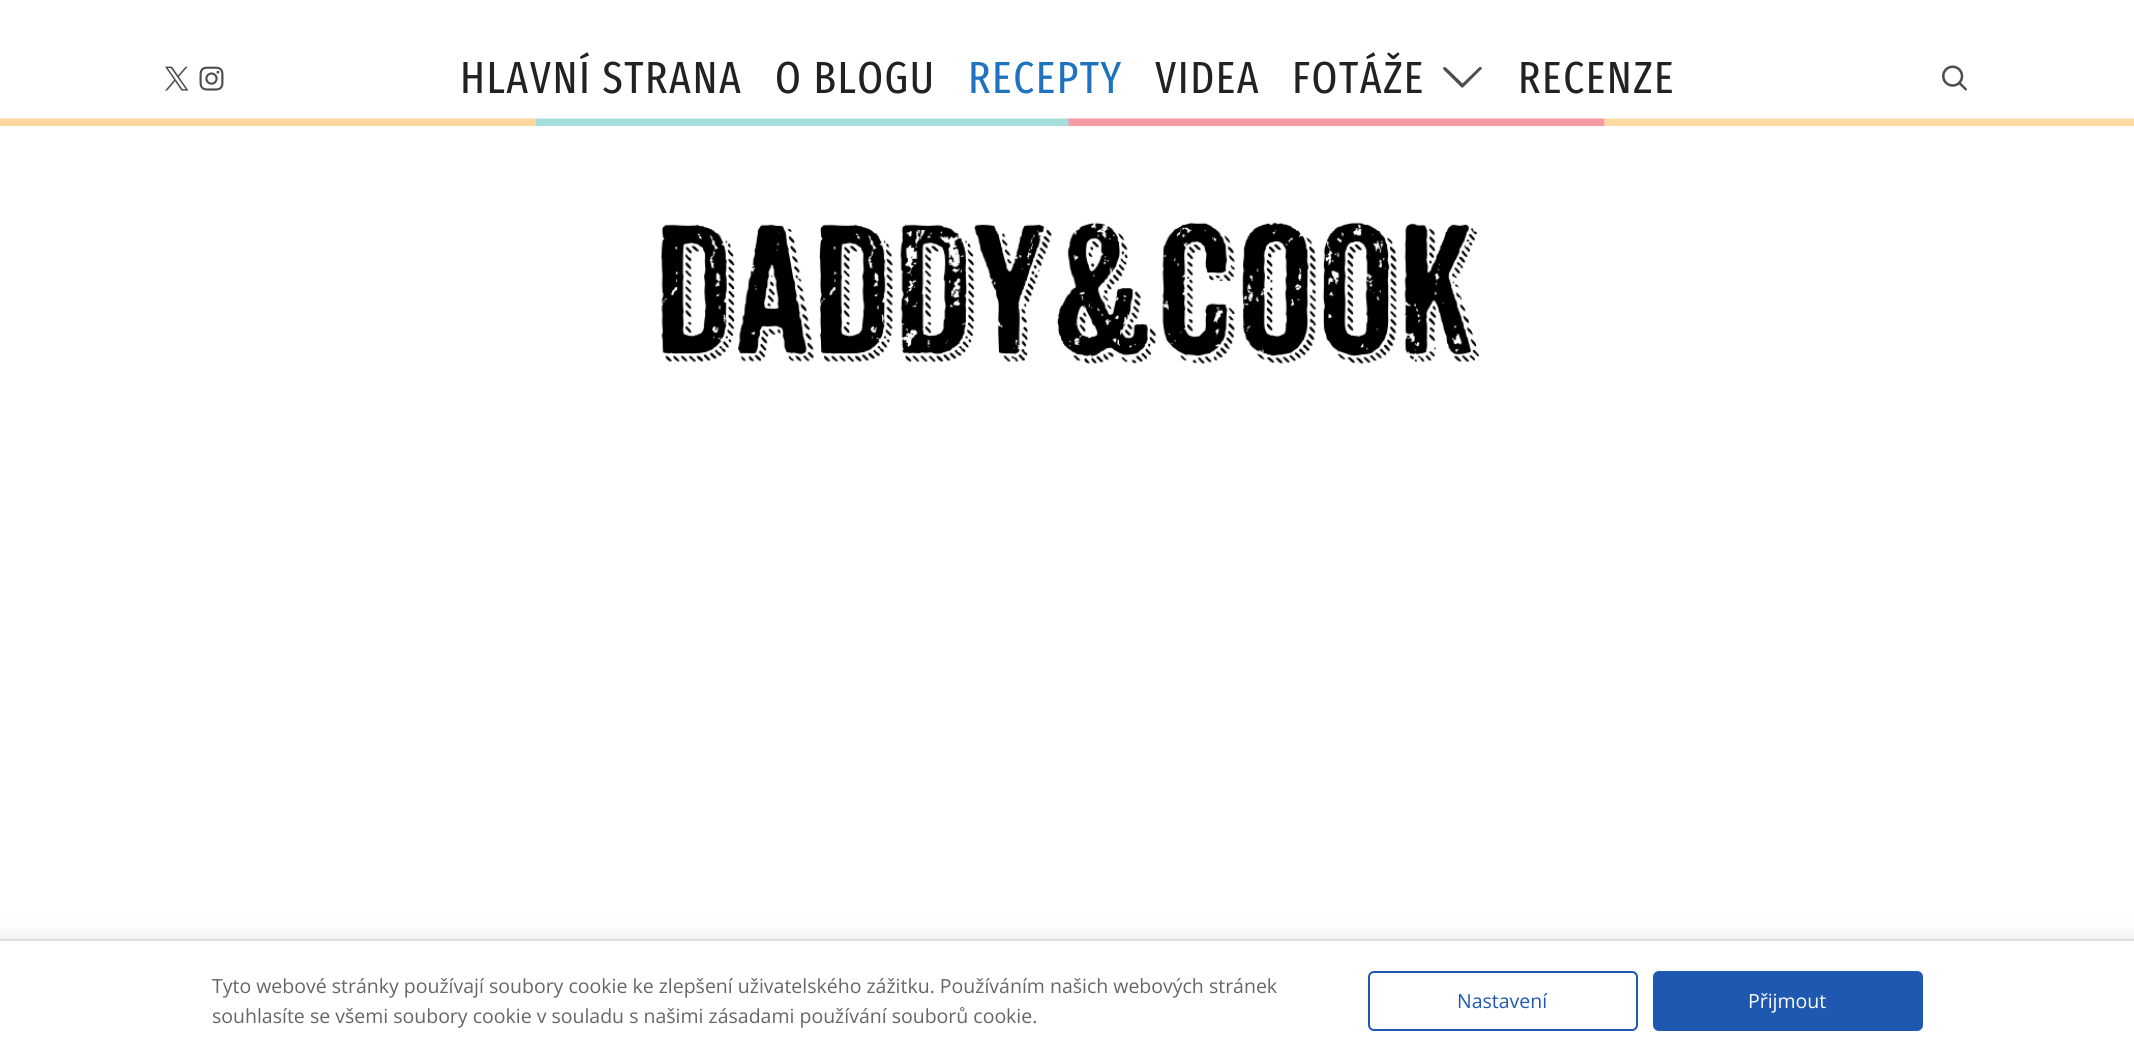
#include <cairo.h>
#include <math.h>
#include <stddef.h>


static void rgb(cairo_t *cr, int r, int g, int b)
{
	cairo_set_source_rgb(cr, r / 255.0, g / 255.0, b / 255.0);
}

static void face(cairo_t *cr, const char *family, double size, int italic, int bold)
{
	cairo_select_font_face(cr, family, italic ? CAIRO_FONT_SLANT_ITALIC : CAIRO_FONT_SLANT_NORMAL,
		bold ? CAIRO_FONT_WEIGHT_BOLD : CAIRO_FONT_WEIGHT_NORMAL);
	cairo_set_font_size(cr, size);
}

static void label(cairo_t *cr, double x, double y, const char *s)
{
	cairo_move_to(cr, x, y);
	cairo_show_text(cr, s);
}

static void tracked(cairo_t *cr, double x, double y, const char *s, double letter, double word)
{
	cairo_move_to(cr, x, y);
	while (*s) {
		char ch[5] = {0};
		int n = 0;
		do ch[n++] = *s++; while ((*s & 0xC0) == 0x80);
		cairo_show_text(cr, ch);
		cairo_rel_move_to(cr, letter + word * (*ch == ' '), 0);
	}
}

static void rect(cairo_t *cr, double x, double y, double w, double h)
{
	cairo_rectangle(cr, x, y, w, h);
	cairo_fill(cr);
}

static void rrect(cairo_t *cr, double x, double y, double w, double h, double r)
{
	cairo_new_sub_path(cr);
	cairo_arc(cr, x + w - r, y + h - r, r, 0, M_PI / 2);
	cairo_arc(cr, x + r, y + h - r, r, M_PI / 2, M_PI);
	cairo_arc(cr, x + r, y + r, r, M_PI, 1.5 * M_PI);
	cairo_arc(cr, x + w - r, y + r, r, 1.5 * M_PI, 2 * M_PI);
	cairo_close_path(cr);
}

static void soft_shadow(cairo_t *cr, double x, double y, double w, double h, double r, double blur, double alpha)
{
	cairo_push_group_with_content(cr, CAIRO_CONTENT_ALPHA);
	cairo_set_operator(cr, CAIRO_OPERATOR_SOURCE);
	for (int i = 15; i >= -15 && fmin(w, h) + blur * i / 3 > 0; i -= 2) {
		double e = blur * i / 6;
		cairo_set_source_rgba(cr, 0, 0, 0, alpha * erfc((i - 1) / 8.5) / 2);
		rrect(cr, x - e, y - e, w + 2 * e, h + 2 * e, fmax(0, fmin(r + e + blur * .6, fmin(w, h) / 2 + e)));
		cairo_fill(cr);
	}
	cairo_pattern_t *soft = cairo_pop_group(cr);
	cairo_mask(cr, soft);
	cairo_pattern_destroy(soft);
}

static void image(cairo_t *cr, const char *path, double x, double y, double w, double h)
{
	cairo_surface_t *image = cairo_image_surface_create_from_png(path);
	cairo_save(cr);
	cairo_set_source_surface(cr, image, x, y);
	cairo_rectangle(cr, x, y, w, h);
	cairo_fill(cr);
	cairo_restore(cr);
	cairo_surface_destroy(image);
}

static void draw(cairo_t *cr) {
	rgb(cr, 255, 255, 255);
	cairo_paint(cr);
	image(cr, "image0.png", 0, 118, 2134, 8);
	image(cr, "image1.png", 165, 66, 24, 25);
	image(cr, "image2.png", 199, 66, 25, 25);
	face(cr, "Fira Sans Extra Condensed", 45, 0, 0);
	rgb(cr, 34, 34, 34);
	tracked(cr, 460, 93, "HLAVNÍ STRANA", 1.5, 0);
	tracked(cr, 775, 93, "O BLOGU", 1.5, 0);
	rgb(cr, 30, 115, 190);
	tracked(cr, 968, 93, "RECEPTY", 1.5, 0);
	rgb(cr, 34, 34, 34);
	tracked(cr, 1155, 93, "VIDEA", 1.5, 0);
	tracked(cr, 1292, 93, "FOTÁŽE", 1.5, 0);
	rgb(cr, 78, 78, 78);
	cairo_new_path(cr);
	cairo_move_to(cr, 1446, 67.5);
	cairo_line_to(cr, 1462.5, 83.5);
	cairo_line_to(cr, 1479.5, 67);
	cairo_curve_to(cr, 1480.5, 66.5, 1482, 67.5, 1482, 68.5);
	cairo_line_to(cr, 1481.5, 69);
	cairo_line_to(cr, 1463, 87.5);
	cairo_line_to(cr, 1461.5, 87.5);
	cairo_line_to(cr, 1446.5, 72.5);
	cairo_curve_to(cr, 1446, 72, 1440.5, 68, 1444.5, 67);
	cairo_close_path(cr);
	cairo_fill(cr);
	rgb(cr, 34, 34, 34);
	tracked(cr, 1518, 93, "RECENZE", 1.5, 0);
	image(cr, "image3.png", 1942, 65, 25, 26);
	image(cr, "image4.png", 660, 222, 820, 142);
	rgb(cr, 36, 47, 66);
	soft_shadow(cr, -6, 950, 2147, 102, 0, 15, 0.31);
	cairo_rectangle(cr, -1, 940, 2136, 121);
	cairo_set_source_rgba(cr, 0.141, 0.184, 0.259, 0.08);
	cairo_stroke(cr);
	rgb(cr, 255, 255, 255);
	rect(cr, 0, 941, 2134, 119);
	face(cr, "Open Sans", 19.5, 0, 0);
	rgb(cr, 102, 102, 102);
	label(cr, 212, 993, "Tyto webové stránky používají soubory cookie ke zlepšení uživatelského zážitku. Používáním našich webových stránek");
	label(cr, 212, 1023, "souhlasíte se všemi soubory cookie v souladu s našimi zásadami používání souborů cookie.");
	rrect(cr, 1369, 972, 268, 58, 5);
	rgb(cr, 30, 88, 177);
	cairo_stroke(cr);
	label(cr, 1457, 1008, "Nastavení");
	rrect(cr, 1654, 972, 268, 58, 5);
	cairo_fill_preserve(cr);
	cairo_stroke(cr);
	rgb(cr, 255, 255, 255);
	label(cr, 1748, 1008, "Přijmout");
}

int main(void) {
	cairo_surface_t *surface = cairo_image_surface_create(CAIRO_FORMAT_RGB24, 2134, 1060);
	cairo_t *cr = cairo_create(surface);
	cairo_font_options_t *options = cairo_font_options_create();
	cairo_font_options_set_hint_metrics(options, CAIRO_HINT_METRICS_OFF);
	cairo_font_options_set_hint_style(options, CAIRO_HINT_STYLE_NONE);
	cairo_set_font_options(cr, options);
	cairo_set_miter_limit(cr, 4);
	draw(cr);
	cairo_surface_write_to_png(surface, "render.png");
	cairo_font_options_destroy(options);
	cairo_destroy(cr);
	cairo_surface_destroy(surface);
	return 0;
}
